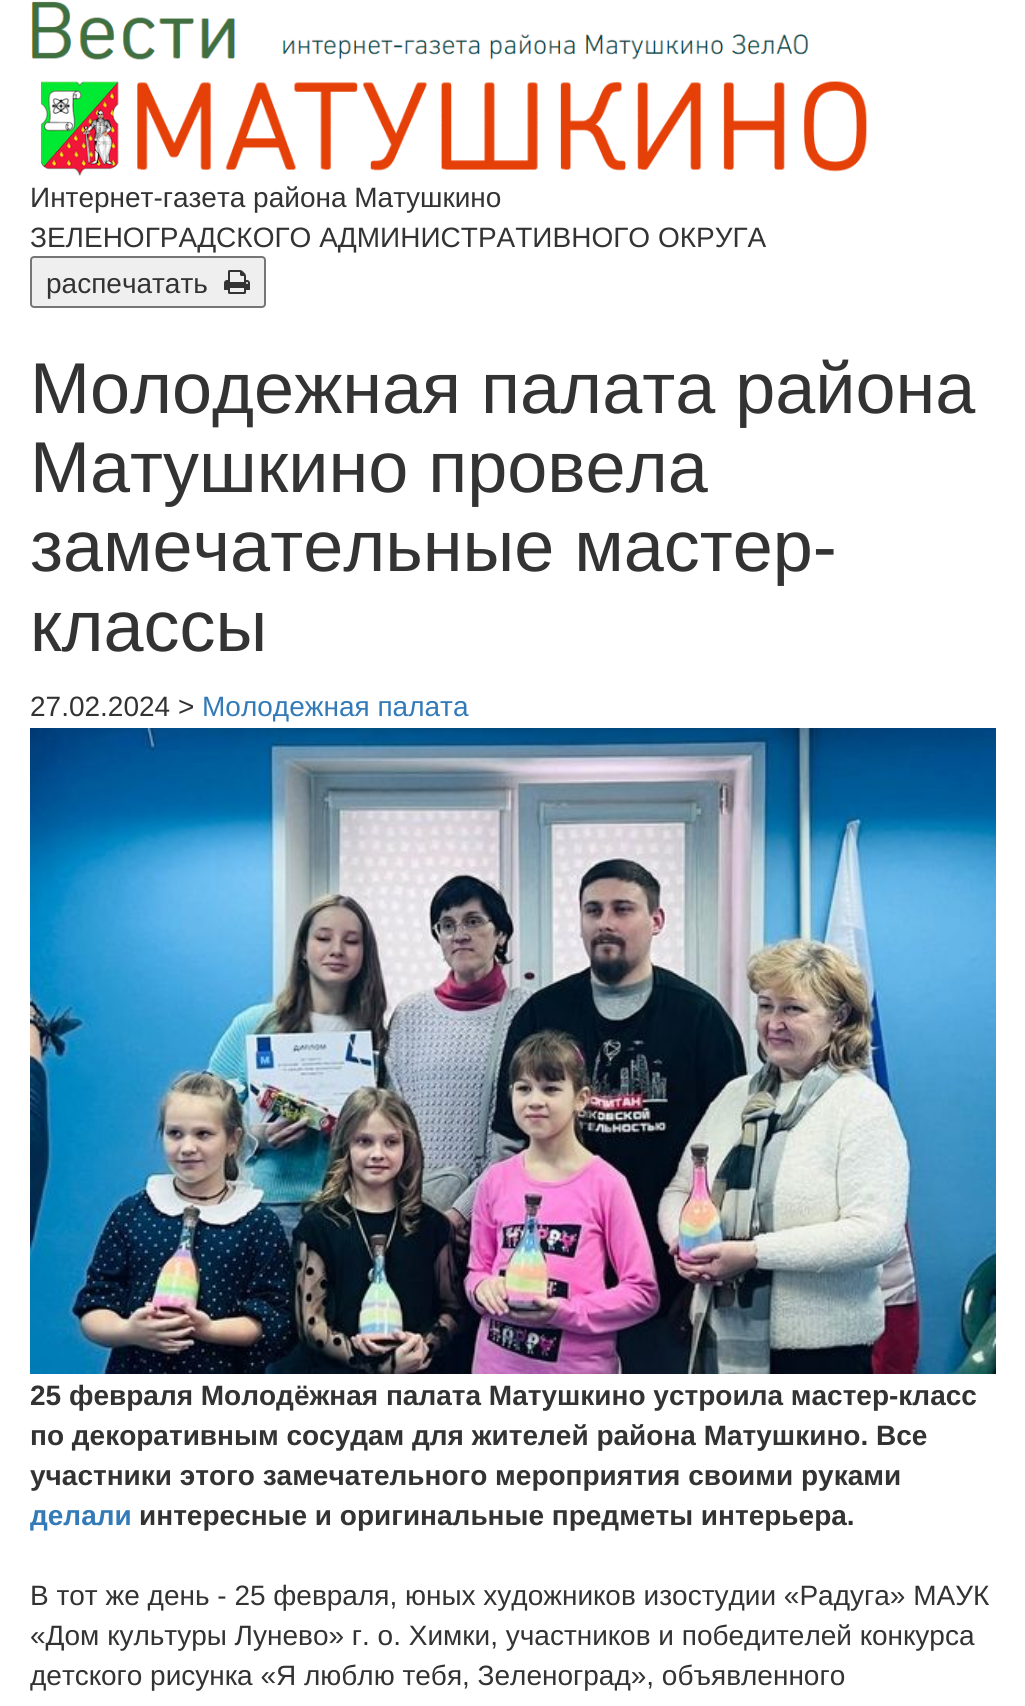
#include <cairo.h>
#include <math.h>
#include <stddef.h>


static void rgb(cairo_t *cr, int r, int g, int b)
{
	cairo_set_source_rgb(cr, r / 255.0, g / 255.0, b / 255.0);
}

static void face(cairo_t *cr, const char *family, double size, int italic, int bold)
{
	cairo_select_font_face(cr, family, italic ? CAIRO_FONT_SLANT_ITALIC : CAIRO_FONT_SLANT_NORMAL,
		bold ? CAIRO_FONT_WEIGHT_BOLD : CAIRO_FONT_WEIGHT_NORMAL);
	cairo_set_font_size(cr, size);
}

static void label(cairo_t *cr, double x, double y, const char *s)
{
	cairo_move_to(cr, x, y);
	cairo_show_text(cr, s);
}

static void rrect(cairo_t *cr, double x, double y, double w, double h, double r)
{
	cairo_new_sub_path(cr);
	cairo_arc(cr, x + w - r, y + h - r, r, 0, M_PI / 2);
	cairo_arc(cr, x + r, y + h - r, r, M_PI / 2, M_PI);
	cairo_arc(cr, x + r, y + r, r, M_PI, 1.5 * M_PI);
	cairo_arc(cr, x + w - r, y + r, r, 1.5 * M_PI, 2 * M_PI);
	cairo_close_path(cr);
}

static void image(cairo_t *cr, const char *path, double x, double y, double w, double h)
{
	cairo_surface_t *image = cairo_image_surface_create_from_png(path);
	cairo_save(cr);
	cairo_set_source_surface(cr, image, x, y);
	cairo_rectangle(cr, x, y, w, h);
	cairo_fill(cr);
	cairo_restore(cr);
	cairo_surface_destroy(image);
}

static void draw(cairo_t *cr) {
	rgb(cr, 255, 255, 255);
	cairo_paint(cr);
	image(cr, "image0.png", 31, 1, 836, 175);
	face(cr, "Liberation Sans", 28, 0, 0);
	rgb(cr, 51, 51, 51);
	label(cr, 30, 207, "Интернет-газета района Матушкино");
	label(cr, 30, 247, "ЗЕЛЕНОГРАДСКОГО АДМИНИСТРАТИВНОГО ОКРУГА");
	rgb(cr, 239, 239, 239);
	rrect(cr, 31, 257, 234, 50, 3);
	cairo_fill_preserve(cr);
	rgb(cr, 118, 118, 118);
	cairo_stroke(cr);
	rgb(cr, 51, 51, 51);
	label(cr, 46, 293, "распечатать");
	image(cr, "image1.png", 224, 270, 26, 24);
	face(cr, "Liberation Sans", 72, 0, 0);
	label(cr, 30, 413, "Молодежная палата района");
	label(cr, 30, 492, "Матушкино провела");
	label(cr, 30, 571, "замечательные мастер-");
	label(cr, 30, 651, "классы");
	face(cr, "Liberation Sans", 28, 0, 0);
	label(cr, 30, 716, "27.02.2024 >");
	rgb(cr, 51, 122, 183);
	label(cr, 202, 716, "Молодежная палата");
	image(cr, "image2.png", 30, 728, 966, 646);
	face(cr, "Liberation Sans", 28, 0, 1);
	rgb(cr, 51, 51, 51);
	label(cr, 30, 1405, "25 февраля Молодёжная палата Матушкино устроила мастер-класс");
	label(cr, 30, 1445, "по декоративным сосудам для жителей района Матушкино. Все");
	label(cr, 30, 1485, "участники этого замечательного мероприятия своими руками");
	rgb(cr, 51, 122, 183);
	label(cr, 30, 1525, "делали");
	rgb(cr, 51, 51, 51);
	label(cr, 139, 1525, "интересные и оригинальные предметы интерьера.");
	face(cr, "Liberation Sans", 28, 0, 0);
	label(cr, 30, 1605, "В тот же день - 25 февраля, юных художников изостудии «Радуга» МАУК");
	label(cr, 30, 1645, "«Дом культуры Лунево» г. о. Химки, участников и победителей конкурса");
	label(cr, 30, 1685, "детского рисунка «Я люблю тебя, Зеленоград», объявленного");
}

int main(void) {
	cairo_surface_t *surface = cairo_image_surface_create(CAIRO_FORMAT_RGB24, 1025, 1706);
	cairo_t *cr = cairo_create(surface);
	cairo_font_options_t *options = cairo_font_options_create();
	cairo_font_options_set_hint_metrics(options, CAIRO_HINT_METRICS_OFF);
	cairo_font_options_set_hint_style(options, CAIRO_HINT_STYLE_NONE);
	cairo_set_font_options(cr, options);
	cairo_set_miter_limit(cr, 4);
	draw(cr);
	cairo_surface_write_to_png(surface, "render.png");
	cairo_font_options_destroy(options);
	cairo_destroy(cr);
	cairo_surface_destroy(surface);
	return 0;
}
